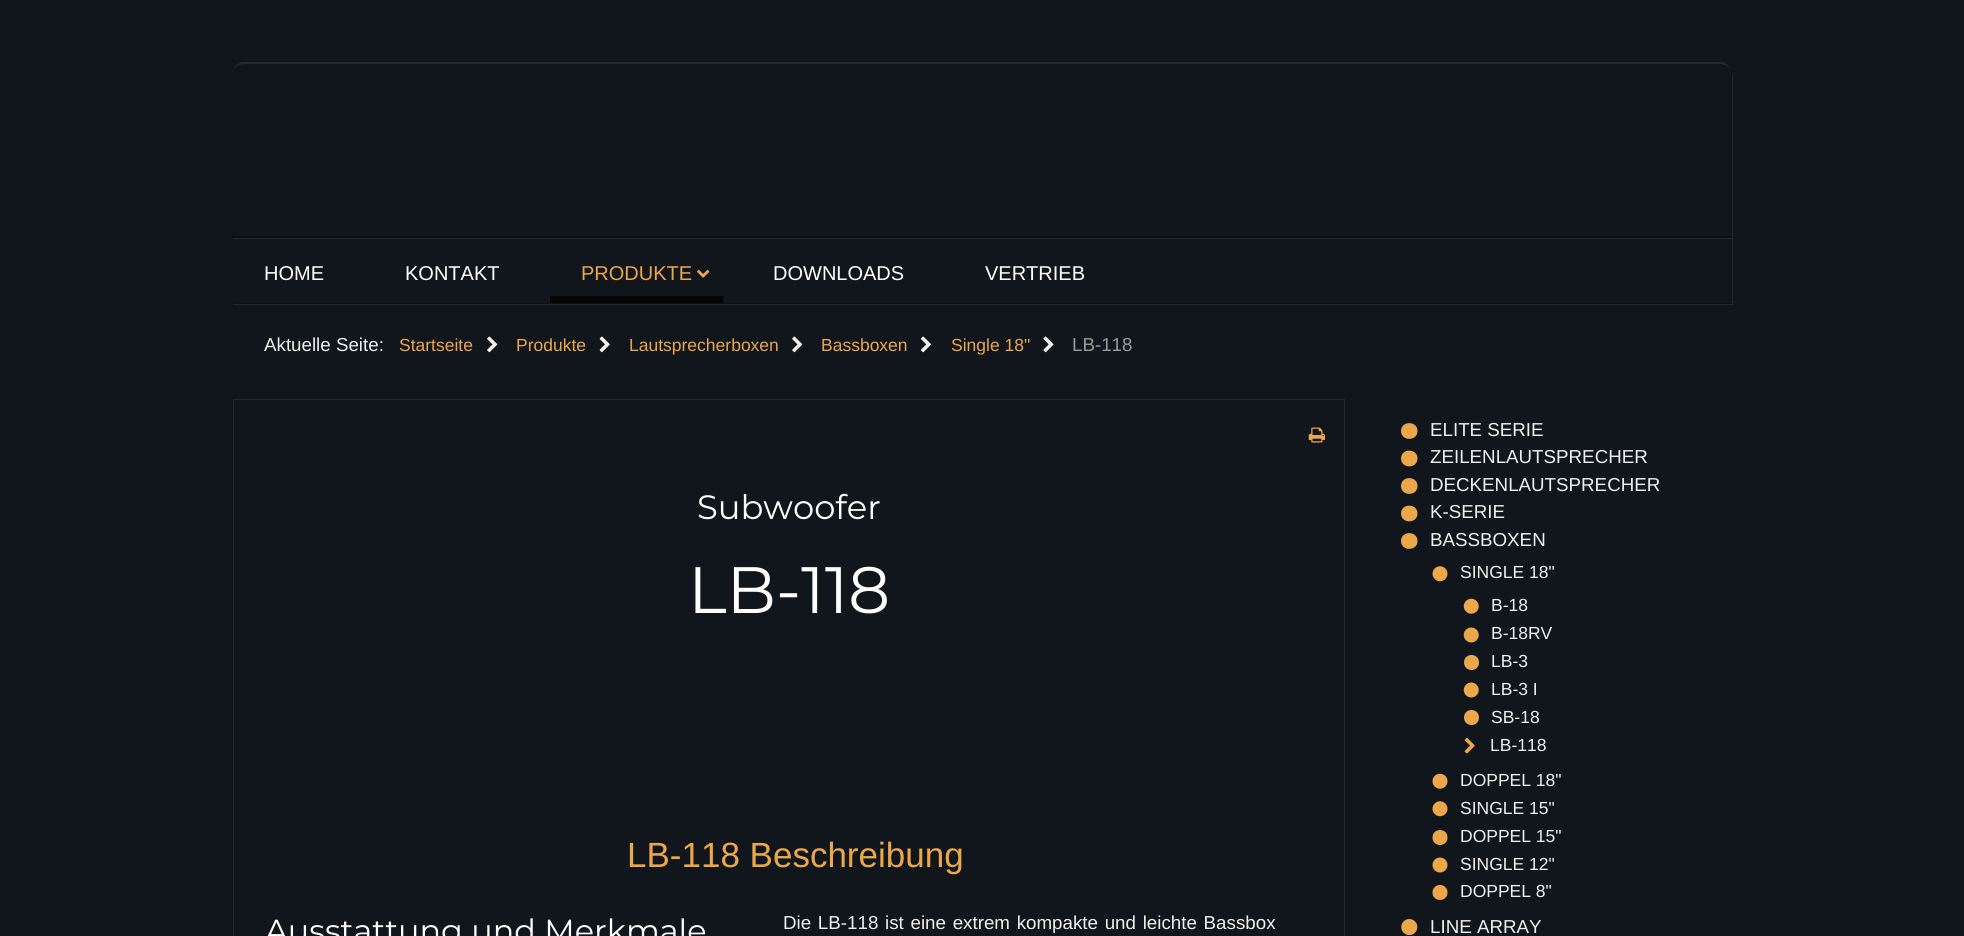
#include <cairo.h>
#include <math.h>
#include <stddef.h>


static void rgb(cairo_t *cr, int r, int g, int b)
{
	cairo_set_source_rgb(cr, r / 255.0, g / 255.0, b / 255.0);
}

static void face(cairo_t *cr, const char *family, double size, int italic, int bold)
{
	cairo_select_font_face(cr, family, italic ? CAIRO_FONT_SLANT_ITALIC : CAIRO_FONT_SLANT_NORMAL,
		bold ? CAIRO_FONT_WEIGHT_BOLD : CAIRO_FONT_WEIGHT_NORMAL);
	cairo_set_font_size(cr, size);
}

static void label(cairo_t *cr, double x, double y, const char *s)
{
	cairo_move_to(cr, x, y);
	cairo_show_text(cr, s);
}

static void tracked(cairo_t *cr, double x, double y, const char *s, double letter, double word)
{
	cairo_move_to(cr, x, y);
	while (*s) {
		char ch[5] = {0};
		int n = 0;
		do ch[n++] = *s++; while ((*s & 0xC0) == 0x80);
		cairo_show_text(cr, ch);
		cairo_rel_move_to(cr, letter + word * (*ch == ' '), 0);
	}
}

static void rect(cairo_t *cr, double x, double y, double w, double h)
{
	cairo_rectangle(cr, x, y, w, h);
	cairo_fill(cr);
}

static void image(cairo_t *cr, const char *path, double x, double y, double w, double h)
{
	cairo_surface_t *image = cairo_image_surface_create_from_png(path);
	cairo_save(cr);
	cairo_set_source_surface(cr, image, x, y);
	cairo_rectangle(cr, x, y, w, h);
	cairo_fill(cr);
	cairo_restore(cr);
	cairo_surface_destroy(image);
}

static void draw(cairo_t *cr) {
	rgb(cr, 17, 22, 28);
	cairo_paint(cr);
	rgb(cr, 36, 41, 46);
	cairo_new_path(cr);
	cairo_move_to(cr, 233, 238);
	cairo_line_to(cr, 233, 239);
	cairo_line_to(cr, 1733, 239);
	cairo_line_to(cr, 1733, 77);
	cairo_line_to(cr, 1732, 73);
	cairo_line_to(cr, 1732, 238);
	cairo_close_path(cr);
	cairo_fill(cr);
	cairo_new_path(cr);
	cairo_move_to(cr, 245, 64);
	cairo_curve_to(cr, 239, 64, 234, 67, 232, 72);
	cairo_curve_to(cr, 232, 69, 238, 63, 242, 62);
	cairo_line_to(cr, 1723, 62);
	cairo_curve_to(cr, 1728, 63, 1732, 71, 1732, 75);
	cairo_curve_to(cr, 1732, 69, 1727, 64, 1720, 64);
	cairo_close_path(cr);
	cairo_fill(cr);
	rgb(cr, 12, 15, 20);
	rect(cr, 232, 236, 1500, 2);
	rgb(cr, 36, 41, 46);
	cairo_new_path(cr);
	cairo_move_to(cr, 233, 304);
	cairo_line_to(cr, 233, 305);
	cairo_line_to(cr, 1733, 305);
	cairo_line_to(cr, 1733, 239);
	cairo_line_to(cr, 1732, 239);
	cairo_line_to(cr, 1732, 304);
	cairo_close_path(cr);
	cairo_fill(cr);
	cairo_set_source_rgba(cr, 0, 0, 0, 0.3);
	rect(cr, 233, 303, 1500, 1);
	face(cr, "Liberation Sans", 20, 0, 0);
	rgb(cr, 255, 255, 255);
	label(cr, 264, 280, "HOME");
	label(cr, 405, 280, "KONTAKT");
	rgb(cr, 3, 4, 6);
	rect(cr, 550, 296, 173, 7);
	rgb(cr, 235, 167, 74);
	label(cr, 581, 280, "PRODUKTE");
	image(cr, "image0.png", 697, 269, 13, 9);
	rgb(cr, 255, 255, 255);
	label(cr, 773, 280, "DOWNLOADS");
	label(cr, 985, 280, "VERTRIEB");
	face(cr, "Liberation Sans", 18.75, 0, 0);
	rgb(cr, 239, 239, 239);
	label(cr, 264, 351, "Aktuelle Seite:");
	face(cr, "Liberation Sans", 17.5, 0, 0);
	rgb(cr, 235, 167, 74);
	label(cr, 399, 351, "Startseite");
	image(cr, "image1.png", 487, 336, 11, 17);
	label(cr, 516, 351, "Produkte");
	image(cr, "image2.png", 599, 336, 11, 17);
	label(cr, 629, 351, "Lautsprecherboxen");
	image(cr, "image1.png", 792, 336, 11, 17);
	label(cr, 821, 351, "Bassboxen");
	image(cr, "image3.png", 920, 336, 11, 17);
	label(cr, 951, 351, "Single 18\"");
	image(cr, "image4.png", 1043, 336, 11, 17);
	face(cr, "Liberation Sans", 18.75, 0, 0);
	rgb(cr, 153, 153, 153);
	label(cr, 1072, 351, "LB-118");
	cairo_rectangle(cr, 233.5, 399.5, 1111, 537);
	rgb(cr, 36, 41, 46);
	cairo_set_line_width(cr, 1);
	cairo_stroke(cr);
	image(cr, "image5.png", 1308, 427, 17, 16);
	face(cr, "Montserrat", 33.75, 0, 0);
	rgb(cr, 255, 255, 255);
	label(cr, 697, 519, "Subwoofer");
	face(cr, "Montserrat", 65.5, 0, 0);
	label(cr, 688, 613, "LB-118");
	face(cr, "Liberation Sans", 35, 0, 0);
	rgb(cr, 235, 167, 74);
	label(cr, 627, 867, "LB-118 Beschreibung");
	face(cr, "Montserrat", 31.9, 0, 0);
	rgb(cr, 255, 255, 255);
	label(cr, 265, 942, "Ausstattung und Merkmale");
	face(cr, "Liberation Sans", 18.75, 0, 0);
	rgb(cr, 239, 239, 239);
	tracked(cr, 783, 929, "Die LB-118 ist eine extrem kompakte und leichte Bassbox", 0, 1.5);
	rgb(cr, 235, 167, 74);
	cairo_new_path(cr);
	cairo_move_to(cr, 1417.5, 431);
	cairo_curve_to(cr, 1417.5, 420.5, 1401, 420.5, 1401, 431);
	cairo_curve_to(cr, 1401, 441.5, 1417.5, 441.5, 1417.5, 431);
	cairo_close_path(cr);
	cairo_fill(cr);
	rgb(cr, 239, 239, 239);
	label(cr, 1430, 436, "ELITE SERIE");
	rgb(cr, 235, 167, 74);
	cairo_new_path(cr);
	cairo_move_to(cr, 1417.5, 458.5);
	cairo_curve_to(cr, 1417.5, 448, 1401, 448, 1401, 458.5);
	cairo_curve_to(cr, 1401, 469, 1417.5, 469, 1417.5, 458.5);
	cairo_close_path(cr);
	cairo_fill(cr);
	rgb(cr, 239, 239, 239);
	label(cr, 1430, 463, "ZEILENLAUTSPRECHER");
	rgb(cr, 235, 167, 74);
	cairo_new_path(cr);
	cairo_move_to(cr, 1417.5, 486);
	cairo_curve_to(cr, 1417.5, 475.5, 1401, 475.5, 1401, 486);
	cairo_curve_to(cr, 1401, 496.5, 1417.5, 496.5, 1417.5, 486);
	cairo_close_path(cr);
	cairo_fill(cr);
	rgb(cr, 239, 239, 239);
	label(cr, 1430, 491, "DECKENLAUTSPRECHER");
	rgb(cr, 235, 167, 74);
	cairo_new_path(cr);
	cairo_move_to(cr, 1417.5, 513.5);
	cairo_curve_to(cr, 1417.5, 503, 1401, 503, 1401, 513.5);
	cairo_curve_to(cr, 1401, 524, 1417.5, 524, 1417.5, 513.5);
	cairo_close_path(cr);
	cairo_fill(cr);
	rgb(cr, 239, 239, 239);
	label(cr, 1430, 518, "K-SERIE");
	rgb(cr, 235, 167, 74);
	cairo_new_path(cr);
	cairo_move_to(cr, 1417.5, 541);
	cairo_curve_to(cr, 1417.5, 530.5, 1401, 530.5, 1401, 541);
	cairo_curve_to(cr, 1401, 551.5, 1417.5, 551.5, 1417.5, 541);
	cairo_close_path(cr);
	cairo_fill(cr);
	rgb(cr, 239, 239, 239);
	label(cr, 1430, 546, "BASSBOXEN");
	image(cr, "image6.png", 1432, 566, 16, 16);
	face(cr, "Liberation Sans", 17.5, 0, 0);
	label(cr, 1460, 578, "SINGLE 18\"");
	image(cr, "image7.png", 1463, 598, 16, 16);
	label(cr, 1491, 611, "B-18");
	image(cr, "image8.png", 1463, 627, 16, 16);
	label(cr, 1491, 639, "B-18RV");
	rgb(cr, 235, 167, 74);
	cairo_new_path(cr);
	cairo_move_to(cr, 1479, 662.5);
	cairo_curve_to(cr, 1479, 652.5, 1464, 652.5, 1464, 662.5);
	cairo_curve_to(cr, 1464, 672.5, 1479, 672.5, 1479, 662.5);
	cairo_close_path(cr);
	cairo_fill(cr);
	rgb(cr, 239, 239, 239);
	label(cr, 1491, 667, "LB-3");
	image(cr, "image8.png", 1463, 682, 16, 16);
	label(cr, 1491, 695, "LB-3 I");
	rgb(cr, 235, 167, 74);
	cairo_new_path(cr);
	cairo_move_to(cr, 1479, 717.5);
	cairo_curve_to(cr, 1479, 707.5, 1464, 707.5, 1464, 717.5);
	cairo_curve_to(cr, 1464, 727.5, 1479, 727.5, 1479, 717.5);
	cairo_close_path(cr);
	cairo_fill(cr);
	rgb(cr, 239, 239, 239);
	label(cr, 1491, 723, "SB-18");
	image(cr, "image9.png", 1464, 737, 11, 17);
	label(cr, 1490, 751, "LB-118");
	image(cr, "image10.png", 1432, 773, 16, 16);
	label(cr, 1460, 786, "DOPPEL 18\"");
	image(cr, "image6.png", 1432, 801, 16, 16);
	label(cr, 1460, 814, "SINGLE 15\"");
	rgb(cr, 235, 167, 74);
	cairo_new_path(cr);
	cairo_move_to(cr, 1447.5, 837.5);
	cairo_curve_to(cr, 1447.5, 827.5, 1432.5, 827.5, 1432.5, 837.5);
	cairo_curve_to(cr, 1432.5, 847.5, 1447.5, 847.5, 1447.5, 837.5);
	cairo_close_path(cr);
	cairo_fill(cr);
	rgb(cr, 239, 239, 239);
	label(cr, 1460, 842, "DOPPEL 15\"");
	image(cr, "image11.png", 1432, 857, 16, 16);
	label(cr, 1460, 870, "SINGLE 12\"");
	rgb(cr, 235, 167, 74);
	cairo_new_path(cr);
	cairo_move_to(cr, 1447.5, 892.5);
	cairo_curve_to(cr, 1447.5, 882.5, 1432.5, 882.5, 1432.5, 892.5);
	cairo_curve_to(cr, 1432.5, 902.5, 1447.5, 902.5, 1447.5, 892.5);
	cairo_close_path(cr);
	cairo_fill(cr);
	rgb(cr, 239, 239, 239);
	label(cr, 1460, 897, "DOPPEL 8\"");
	image(cr, "image12.png", 1401, 919, 17, 17);
	face(cr, "Liberation Sans", 18.75, 0, 0);
	label(cr, 1430, 933, "LINE ARRAY");
}

int main(void) {
	cairo_surface_t *surface = cairo_image_surface_create(CAIRO_FORMAT_RGB24, 1964, 936);
	cairo_t *cr = cairo_create(surface);
	cairo_font_options_t *options = cairo_font_options_create();
	cairo_font_options_set_hint_metrics(options, CAIRO_HINT_METRICS_OFF);
	cairo_font_options_set_hint_style(options, CAIRO_HINT_STYLE_NONE);
	cairo_set_font_options(cr, options);
	cairo_set_miter_limit(cr, 4);
	draw(cr);
	cairo_surface_write_to_png(surface, "render.png");
	cairo_font_options_destroy(options);
	cairo_destroy(cr);
	cairo_surface_destroy(surface);
	return 0;
}
